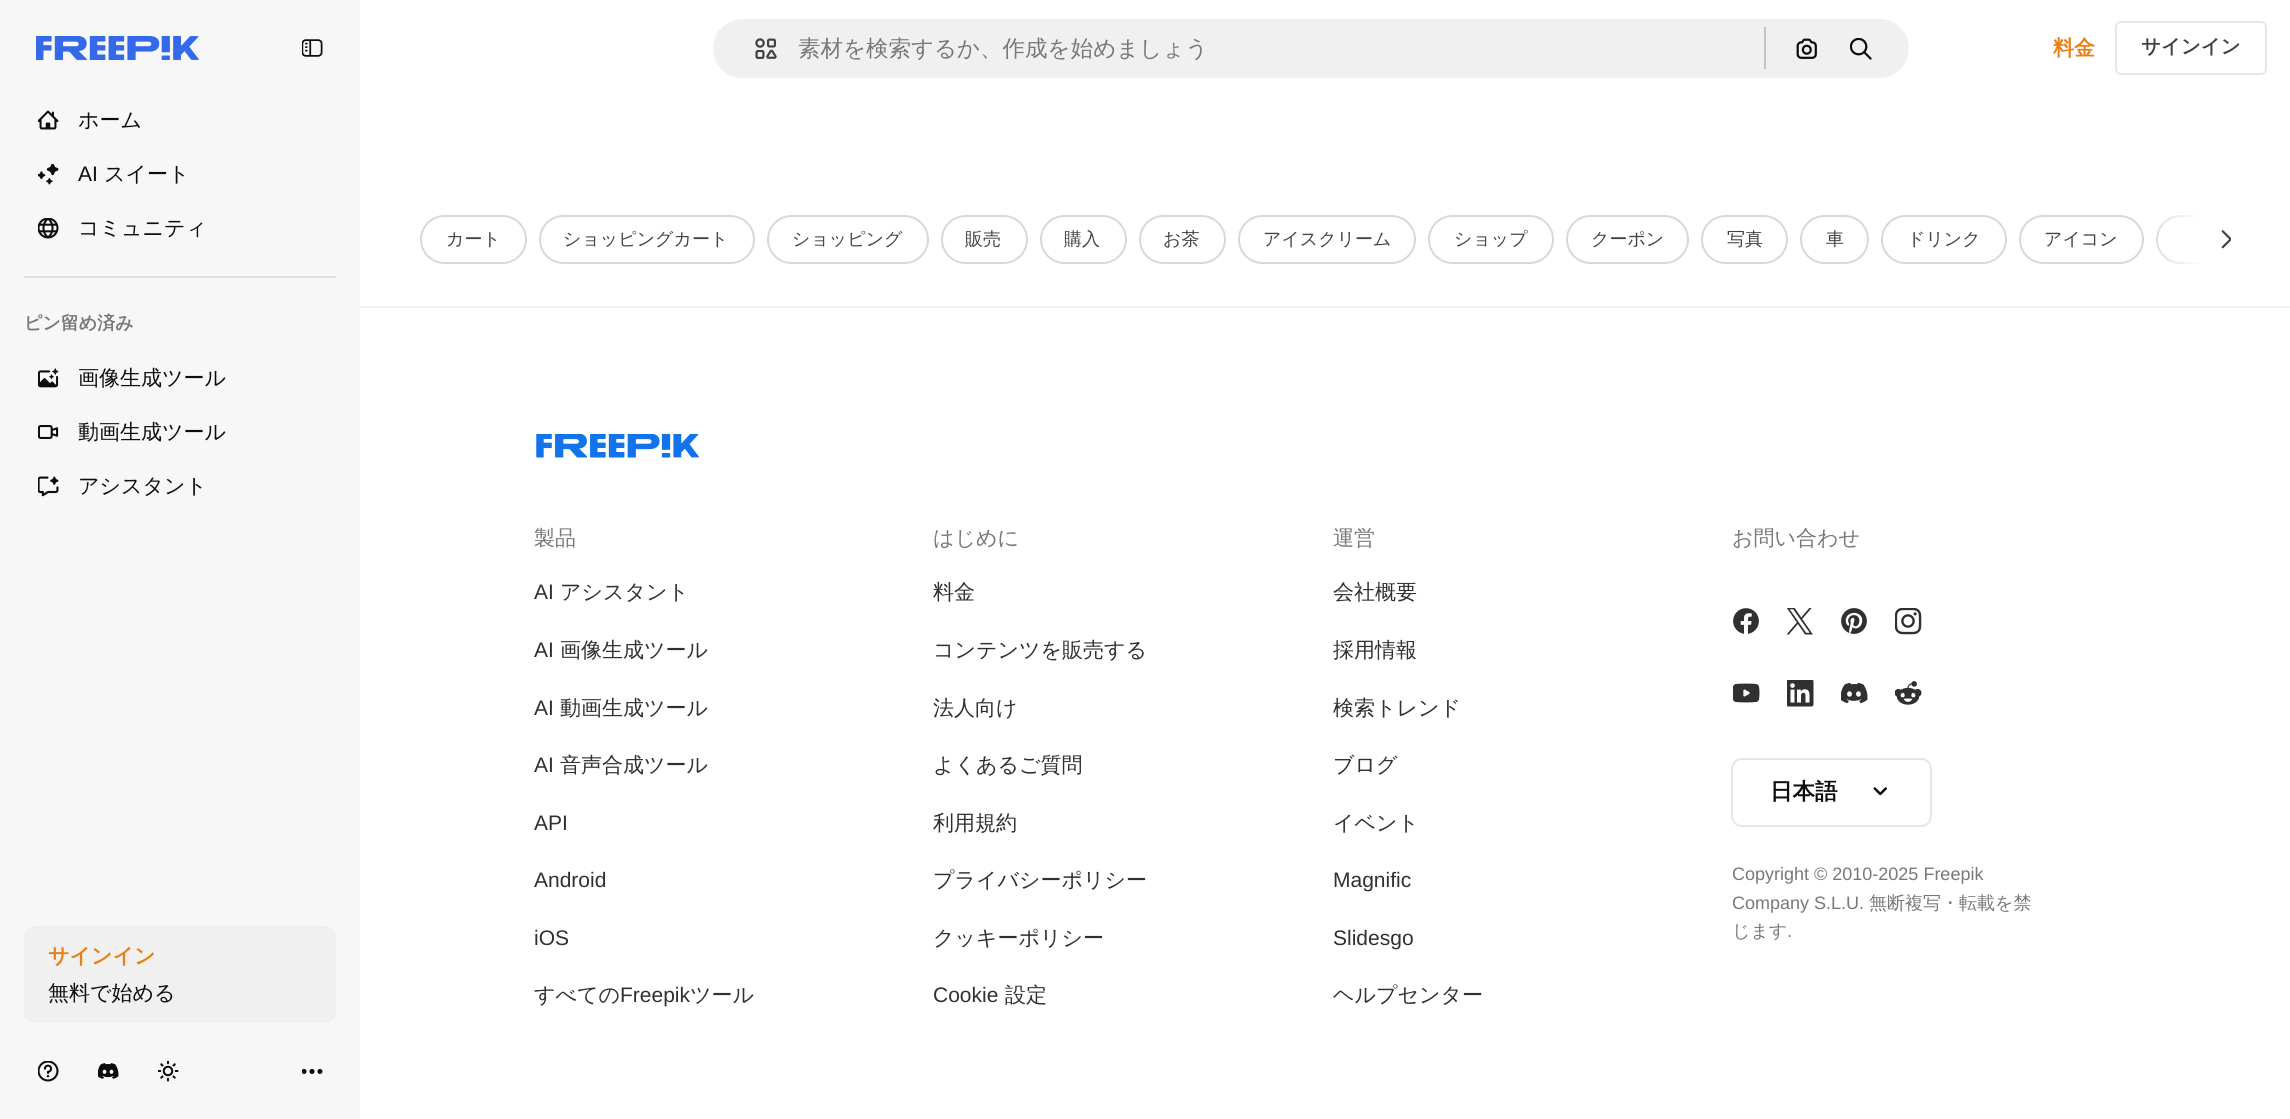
#include <cairo.h>
#include <math.h>
#include <stddef.h>


static void rgb(cairo_t *cr, int r, int g, int b)
{
	cairo_set_source_rgb(cr, r / 255.0, g / 255.0, b / 255.0);
}

static void face(cairo_t *cr, const char *family, double size, int italic, int bold)
{
	cairo_select_font_face(cr, family, italic ? CAIRO_FONT_SLANT_ITALIC : CAIRO_FONT_SLANT_NORMAL,
		bold ? CAIRO_FONT_WEIGHT_BOLD : CAIRO_FONT_WEIGHT_NORMAL);
	cairo_set_font_size(cr, size);
}

static void label(cairo_t *cr, double x, double y, const char *s)
{
	cairo_move_to(cr, x, y);
	cairo_show_text(cr, s);
}

static void rect(cairo_t *cr, double x, double y, double w, double h)
{
	cairo_rectangle(cr, x, y, w, h);
	cairo_fill(cr);
}

static void rrect(cairo_t *cr, double x, double y, double w, double h, double r)
{
	cairo_new_sub_path(cr);
	cairo_arc(cr, x + w - r, y + h - r, r, 0, M_PI / 2);
	cairo_arc(cr, x + r, y + h - r, r, M_PI / 2, M_PI);
	cairo_arc(cr, x + r, y + r, r, M_PI, 1.5 * M_PI);
	cairo_arc(cr, x + w - r, y + r, r, 1.5 * M_PI, 2 * M_PI);
	cairo_close_path(cr);
}

static void image(cairo_t *cr, const char *path, double x, double y, double w, double h)
{
	cairo_surface_t *image = cairo_image_surface_create_from_png(path);
	cairo_save(cr);
	cairo_set_source_surface(cr, image, x, y);
	cairo_rectangle(cr, x, y, w, h);
	cairo_fill(cr);
	cairo_restore(cr);
	cairo_surface_destroy(image);
}

static void draw(cairo_t *cr) {
	cairo_pattern_t *gradient;
	rgb(cr, 255, 255, 255);
	cairo_paint(cr);
	rgb(cr, 247, 247, 247);
	rect(cr, 0, 0, 360, 1119);
	image(cr, "image0.png", 36, 36, 163, 24);
	image(cr, "image1.png", 302, 39, 21, 18);
	image(cr, "image2.png", 38, 110, 21, 20);
	face(cr, "WenQuanYi Zen Hei Medium", 21, 0, 0);
	rgb(cr, 13, 13, 13);
	label(cr, 78, 127, "ホーム");
	image(cr, "image3.png", 38, 164, 21, 21);
	face(cr, "Liberation Sans", 21, 0, 0);
	label(cr, 78, 181, "AI");
	face(cr, "WenQuanYi Zen Hei Medium", 21, 0, 0);
	label(cr, 104, 181, "スイート");
	image(cr, "image4.png", 38, 218, 21, 21);
	label(cr, 78, 235, "コミュニティ");
	rgb(cr, 224, 224, 224);
	rect(cr, 24, 276, 312, 2);
	face(cr, "WenQuanYi Zen Hei", 18, 0, 1);
	rgb(cr, 120, 120, 120);
	label(cr, 24, 329, "ピン留め済み");
	image(cr, "image5.png", 38, 368, 21, 20);
	face(cr, "WenQuanYi Zen Hei Medium", 21, 0, 0);
	rgb(cr, 13, 13, 13);
	label(cr, 78, 385, "画像生成ツール");
	image(cr, "image6.png", 38, 425, 21, 14);
	label(cr, 78, 439, "動画生成ツール");
	image(cr, "image7.png", 38, 476, 21, 21);
	label(cr, 78, 493, "アシスタント");
	rgb(cr, 240, 240, 240);
	rrect(cr, 24, 926, 312, 97, 12);
	cairo_fill(cr);
	face(cr, "WenQuanYi Zen Hei", 21, 0, 1);
	rgb(cr, 234, 126, 17);
	label(cr, 48, 963, "サインイン");
	face(cr, "WenQuanYi Zen Hei Medium", 21, 0, 0);
	rgb(cr, 13, 13, 13);
	label(cr, 48, 1000, "無料で始める");
	image(cr, "image8.png", 38, 1061, 21, 21);
	image(cr, "image9.png", 98, 1063, 21, 16);
	image(cr, "image10.png", 158, 1061, 21, 21);
	image(cr, "image11.png", 302, 1068, 21, 6);
	rgb(cr, 240, 240, 240);
	rrect(cr, 712, 18, 1198, 61, 30.5);
	cairo_fill_preserve(cr);
	rgb(cr, 255, 255, 255);
	cairo_stroke(cr);
	image(cr, "image12.png", 755, 38, 22, 21);
	face(cr, "WenQuanYi Zen Hei Medium", 22.5, 0, 0);
	rgb(cr, 120, 120, 120);
	label(cr, 798, 56, "素材を検索するか、作成を始めましょう");
	rgb(cr, 195, 195, 195);
	rect(cr, 1764, 27, 2, 42);
	image(cr, "image13.png", 1796, 38, 21, 21);
	image(cr, "image14.png", 1850, 38, 22, 22);
	face(cr, "WenQuanYi Zen Hei", 21, 0, 1);
	rgb(cr, 234, 126, 17);
	label(cr, 2053, 55, "料金");
	rrect(cr, 2116, 22, 150, 52, 5);
	rgb(cr, 231, 231, 231);
	cairo_stroke(cr);
	face(cr, "WenQuanYi Zen Hei", 19.5, 0, 1);
	rgb(cr, 66, 66, 66);
	label(cr, 2141, 53, "サインイン");
	rrect(cr, 421, 216, 105, 47, 23.5);
	rgb(cr, 216, 216, 216);
	cairo_stroke(cr);
	face(cr, "WenQuanYi Zen Hei Medium", 18, 0, 0);
	rgb(cr, 66, 66, 66);
	label(cr, 446, 245, "カート");
	rrect(cr, 540, 216, 214, 47, 23.5);
	rgb(cr, 216, 216, 216);
	cairo_stroke(cr);
	rgb(cr, 66, 66, 66);
	label(cr, 563, 245, "ショッピングカート");
	rrect(cr, 768, 216, 160, 47, 23.5);
	rgb(cr, 216, 216, 216);
	cairo_stroke(cr);
	rgb(cr, 66, 66, 66);
	label(cr, 792, 245, "ショッピング");
	rrect(cr, 942, 216, 85, 47, 23.5);
	rgb(cr, 216, 216, 216);
	cairo_stroke(cr);
	rgb(cr, 66, 66, 66);
	label(cr, 965, 245, "販売");
	rrect(cr, 1041, 216, 85, 47, 23.5);
	rgb(cr, 216, 216, 216);
	cairo_stroke(cr);
	rgb(cr, 66, 66, 66);
	label(cr, 1064, 245, "購入");
	rrect(cr, 1140, 216, 85, 47, 23.5);
	rgb(cr, 216, 216, 216);
	cairo_stroke(cr);
	rgb(cr, 66, 66, 66);
	label(cr, 1163, 245, "お茶");
	rrect(cr, 1239, 216, 176, 47, 23.5);
	rgb(cr, 216, 216, 216);
	cairo_stroke(cr);
	rgb(cr, 66, 66, 66);
	label(cr, 1263, 245, "アイスクリーム");
	rrect(cr, 1429, 216, 124, 47, 23.5);
	rgb(cr, 216, 216, 216);
	cairo_stroke(cr);
	rgb(cr, 66, 66, 66);
	label(cr, 1454, 245, "ショップ");
	rrect(cr, 1567, 216, 121, 47, 23.5);
	rgb(cr, 216, 216, 216);
	cairo_stroke(cr);
	rgb(cr, 66, 66, 66);
	label(cr, 1591, 245, "クーポン");
	rrect(cr, 1702, 216, 85, 47, 23.5);
	rgb(cr, 216, 216, 216);
	cairo_stroke(cr);
	rgb(cr, 66, 66, 66);
	label(cr, 1727, 245, "写真");
	rrect(cr, 1801, 216, 67, 47, 23.5);
	rgb(cr, 216, 216, 216);
	cairo_stroke(cr);
	rgb(cr, 66, 66, 66);
	label(cr, 1826, 245, "車");
	rrect(cr, 1882, 216, 124, 47, 23.5);
	rgb(cr, 216, 216, 216);
	cairo_stroke(cr);
	rgb(cr, 66, 66, 66);
	label(cr, 1907, 245, "ドリンク");
	rrect(cr, 2020, 216, 123, 47, 23.5);
	rgb(cr, 216, 216, 216);
	cairo_stroke(cr);
	rgb(cr, 66, 66, 66);
	label(cr, 2044, 245, "アイコン");
	cairo_save(cr);
	cairo_rectangle(cr, 420, 215, 1811, 49);
	cairo_clip(cr);
	rrect(cr, 2157, 216, 82, 47, 23.5);
	rgb(cr, 216, 216, 216);
	cairo_stroke(cr);
	cairo_restore(cr);
	rgb(cr, 255, 255, 255);
	rect(cr, 2201, 215, 30, 49);
	gradient = cairo_pattern_create_linear(2201, 239, 2148, 239);
	cairo_pattern_add_color_stop_rgba(gradient, 0, 1, 1, 1, 1);
	cairo_pattern_add_color_stop_rgba(gradient, 1, 1, 1, 1, 0);
	cairo_set_source(cr, gradient);
	cairo_pattern_destroy(gradient);
	rect(cr, 2156, 215, 45, 49);
	image(cr, "image15.png", 2221, 230, 10, 19);
	rgb(cr, 240, 240, 240);
	rect(cr, 360, 306, 1930, 2);
	image(cr, "image16.png", 536, 434, 163, 24);
	face(cr, "WenQuanYi Zen Hei Medium", 21, 0, 0);
	rgb(cr, 120, 120, 120);
	label(cr, 534, 545, "製品");
	face(cr, "Liberation Sans", 21, 0, 0);
	rgb(cr, 48, 48, 48);
	label(cr, 534, 599, "AI");
	face(cr, "WenQuanYi Zen Hei Medium", 21, 0, 0);
	label(cr, 560, 599, "アシスタント");
	face(cr, "Liberation Sans", 21, 0, 0);
	label(cr, 534, 657, "AI");
	face(cr, "WenQuanYi Zen Hei Medium", 21, 0, 0);
	label(cr, 560, 657, "画像生成ツール");
	face(cr, "Liberation Sans", 21, 0, 0);
	label(cr, 534, 715, "AI");
	face(cr, "WenQuanYi Zen Hei Medium", 21, 0, 0);
	label(cr, 560, 715, "動画生成ツール");
	face(cr, "Liberation Sans", 21, 0, 0);
	label(cr, 534, 772, "AI");
	face(cr, "WenQuanYi Zen Hei Medium", 21, 0, 0);
	label(cr, 560, 772, "音声合成ツール");
	face(cr, "Liberation Sans", 21, 0, 0);
	label(cr, 534, 830, "API");
	label(cr, 534, 887, "Android");
	label(cr, 534, 945, "iOS");
	face(cr, "WenQuanYi Zen Hei Medium", 21, 0, 0);
	label(cr, 534, 1002, "すべての");
	face(cr, "Liberation Sans", 21, 0, 0);
	label(cr, 620, 1002, "Freepik");
	face(cr, "WenQuanYi Zen Hei Medium", 21, 0, 0);
	label(cr, 690, 1002, "ツール");
	rgb(cr, 120, 120, 120);
	label(cr, 933, 545, "はじめに");
	rgb(cr, 48, 48, 48);
	label(cr, 933, 599, "料金");
	label(cr, 933, 657, "コンテンツを販売する");
	label(cr, 933, 715, "法人向け");
	label(cr, 933, 772, "よくあるご質問");
	label(cr, 933, 830, "利用規約");
	label(cr, 933, 887, "プライバシーポリシー");
	label(cr, 933, 945, "クッキーポリシー");
	face(cr, "Liberation Sans", 21, 0, 0);
	label(cr, 933, 1002, "Cookie");
	face(cr, "WenQuanYi Zen Hei Medium", 21, 0, 0);
	label(cr, 1005, 1002, "設定");
	rgb(cr, 120, 120, 120);
	label(cr, 1333, 545, "運営");
	rgb(cr, 48, 48, 48);
	label(cr, 1333, 599, "会社概要");
	label(cr, 1333, 657, "採用情報");
	label(cr, 1333, 715, "検索トレンド");
	label(cr, 1333, 772, "ブログ");
	label(cr, 1333, 830, "イベント");
	face(cr, "Liberation Sans", 21, 0, 0);
	label(cr, 1333, 887, "Magnific");
	label(cr, 1333, 945, "Slidesgo");
	face(cr, "WenQuanYi Zen Hei Medium", 21, 0, 0);
	label(cr, 1333, 1002, "ヘルプセンター");
	rgb(cr, 120, 120, 120);
	label(cr, 1732, 545, "お問い合わせ");
	image(cr, "image17.png", 1733, 608, 26, 26);
	image(cr, "image18.png", 1787, 608, 26, 27);
	image(cr, "image19.png", 1841, 608, 26, 26);
	image(cr, "image20.png", 1895, 608, 27, 27);
	image(cr, "image21.png", 1733, 683, 27, 20);
	image(cr, "image22.png", 1787, 680, 27, 27);
	image(cr, "image23.png", 1841, 682, 27, 22);
	image(cr, "image24.png", 1895, 681, 27, 24);
	rrect(cr, 1732, 759, 199, 67, 10);
	rgb(cr, 230, 230, 230);
	cairo_stroke(cr);
	face(cr, "WenQuanYi Zen Hei", 22.5, 0, 1);
	rgb(cr, 13, 13, 13);
	label(cr, 1770, 799, "日本語");
	image(cr, "image25.png", 1873, 787, 14, 9);
	face(cr, "Liberation Sans", 18, 0, 0);
	rgb(cr, 120, 120, 120);
	label(cr, 1732, 880, "Copyright © 2010-2025 Freepik");
	label(cr, 1732, 909, "Company S.L.U.");
	face(cr, "WenQuanYi Zen Hei Medium", 18, 0, 0);
	label(cr, 1869, 909, "無断複写・転載を禁");
	label(cr, 1732, 937, "じます");
	face(cr, "Liberation Sans", 18, 0, 0);
	label(cr, 1787, 937, ".");
}

int main(void) {
	cairo_surface_t *surface = cairo_image_surface_create(CAIRO_FORMAT_RGB24, 2290, 1119);
	cairo_t *cr = cairo_create(surface);
	cairo_font_options_t *options = cairo_font_options_create();
	cairo_font_options_set_hint_metrics(options, CAIRO_HINT_METRICS_OFF);
	cairo_font_options_set_hint_style(options, CAIRO_HINT_STYLE_NONE);
	cairo_set_font_options(cr, options);
	cairo_set_miter_limit(cr, 4);
	draw(cr);
	cairo_surface_write_to_png(surface, "render.png");
	cairo_font_options_destroy(options);
	cairo_destroy(cr);
	cairo_surface_destroy(surface);
	return 0;
}
